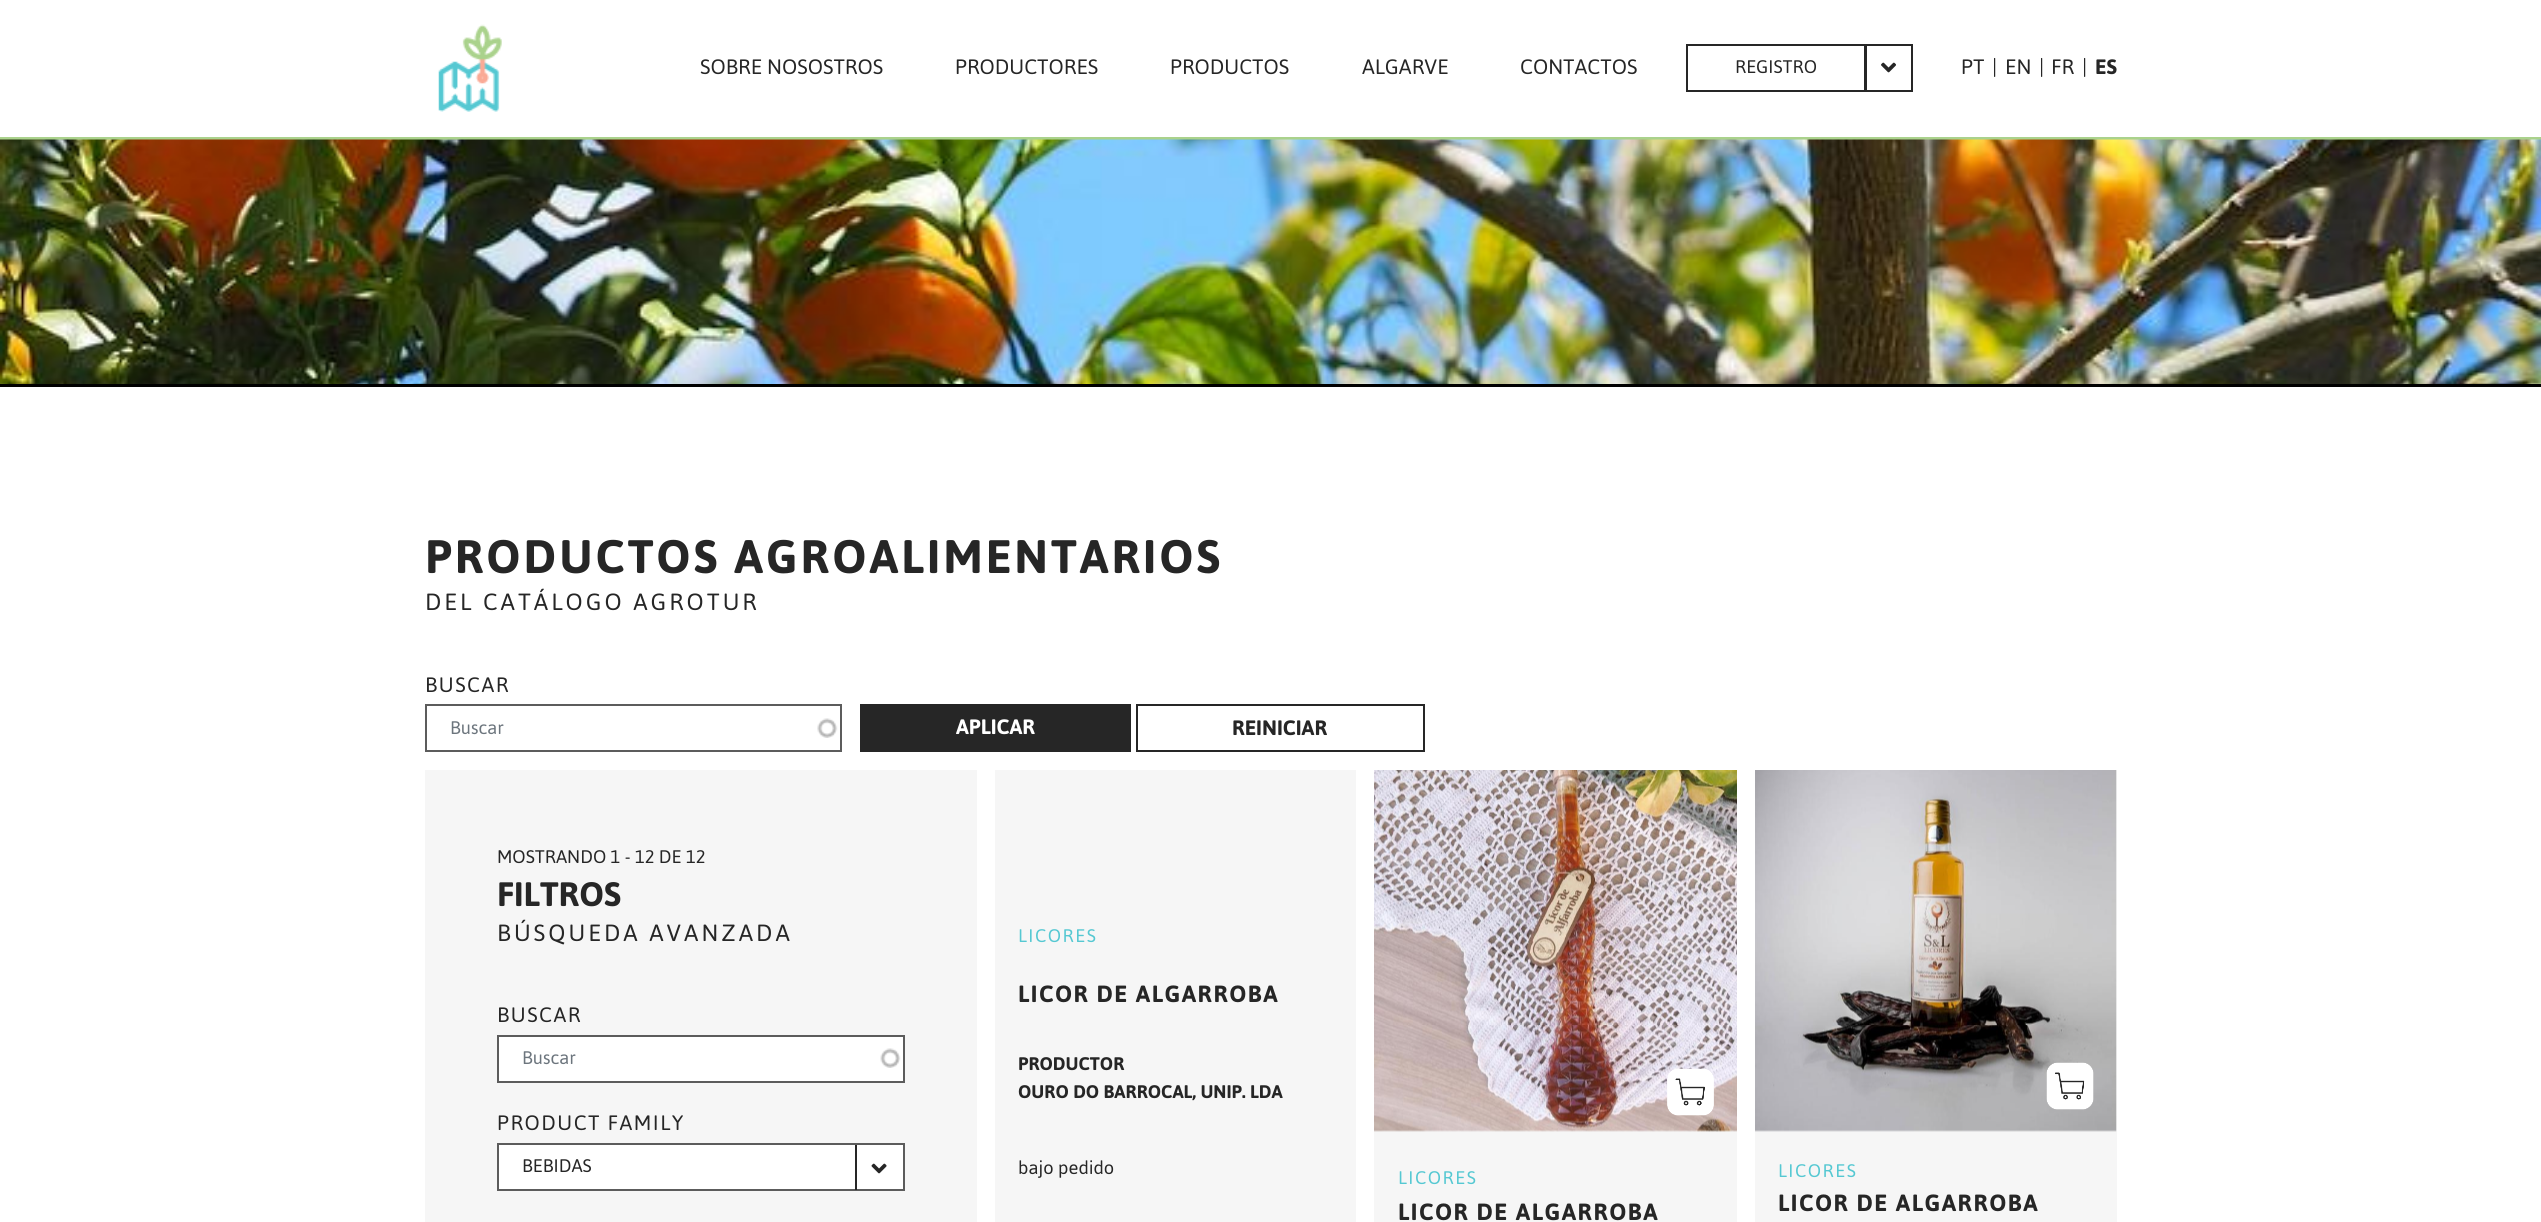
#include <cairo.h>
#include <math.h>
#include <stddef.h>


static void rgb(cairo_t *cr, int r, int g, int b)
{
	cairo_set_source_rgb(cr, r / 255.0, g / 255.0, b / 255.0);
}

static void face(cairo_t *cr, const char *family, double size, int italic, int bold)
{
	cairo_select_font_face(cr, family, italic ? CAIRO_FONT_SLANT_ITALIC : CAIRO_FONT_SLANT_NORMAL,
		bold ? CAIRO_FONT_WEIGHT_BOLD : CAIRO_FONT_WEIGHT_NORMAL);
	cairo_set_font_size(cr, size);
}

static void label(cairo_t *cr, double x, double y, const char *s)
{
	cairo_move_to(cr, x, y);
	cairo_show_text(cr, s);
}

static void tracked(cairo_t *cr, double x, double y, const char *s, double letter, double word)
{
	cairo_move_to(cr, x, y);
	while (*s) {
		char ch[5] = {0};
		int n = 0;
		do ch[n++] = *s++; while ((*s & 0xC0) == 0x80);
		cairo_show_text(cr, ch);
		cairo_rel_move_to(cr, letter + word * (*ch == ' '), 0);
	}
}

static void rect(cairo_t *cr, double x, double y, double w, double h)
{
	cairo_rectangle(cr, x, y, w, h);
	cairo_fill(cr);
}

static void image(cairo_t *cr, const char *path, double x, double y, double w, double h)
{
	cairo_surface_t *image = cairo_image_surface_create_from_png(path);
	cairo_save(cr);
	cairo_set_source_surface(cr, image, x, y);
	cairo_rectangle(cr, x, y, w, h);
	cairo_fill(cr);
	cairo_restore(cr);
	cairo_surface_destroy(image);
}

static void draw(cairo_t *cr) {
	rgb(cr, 255, 255, 255);
	cairo_paint(cr);
	rgb(cr, 170, 210, 140);
	rect(cr, 0, 137, 2541, 3);
	image(cr, "image0.png", 438, 24, 64, 88);
	face(cr, "Jaldi", 24, 0, 0);
	rgb(cr, 38, 38, 38);
	label(cr, 700, 74, "SOBRE NOSOSTROS");
	label(cr, 955, 74, "PRODUCTORES");
	label(cr, 1170, 74, "PRODUCTOS");
	label(cr, 1362, 74, "ALGARVE");
	label(cr, 1520, 74, "CONTACTOS");
	cairo_rectangle(cr, 1687, 45, 178, 46);
	cairo_stroke(cr);
	face(cr, "Jaldi", 21, 0, 0);
	label(cr, 1735, 73, "REGISTRO");
	cairo_rectangle(cr, 1866, 45, 46, 46);
	cairo_stroke(cr);
	image(cr, "image1.png", 1881, 62, 15, 11);
	face(cr, "Jaldi", 24, 0, 0);
	label(cr, 1961, 74, "PT");
	label(cr, 1992, 74, "|");
	label(cr, 2005, 74, "EN");
	label(cr, 2039, 74, "|");
	label(cr, 2051, 74, "FR");
	label(cr, 2082, 74, "|");
	face(cr, "Jaldi", 24, 0, 1);
	label(cr, 2095, 74, "ES");
	image(cr, "image2.png", 0, 139, 2541, 245);
	rgb(cr, 0, 0, 0);
	rect(cr, 0, 384, 2541, 3);
	face(cr, "Jaldi", 54, 0, 1);
	rgb(cr, 38, 38, 38);
	tracked(cr, 425, 573, "PRODUCTOS AGROALIMENTARIOS", 3, 0);
	face(cr, "Jaldi", 27, 0, 0);
	tracked(cr, 425, 610, "DEL CATÁLOGO AGROTUR", 3, 0);
	face(cr, "Jaldi", 24, 0, 0);
	tracked(cr, 425, 692, "BUSCAR", 1.5, 0);
	image(cr, "image3.png", 817, 718, 21, 20);
	cairo_rectangle(cr, 426, 705, 415, 46);
	rgb(cr, 92, 92, 92);
	cairo_stroke(cr);
	face(cr, "Jaldi", 21, 0, 0);
	rgb(cr, 108, 117, 125);
	label(cr, 450, 734, "Buscar");
	rgb(cr, 38, 38, 38);
	rect(cr, 860, 704, 271, 48);
	face(cr, "Jaldi", 24, 0, 1);
	rgb(cr, 255, 255, 255);
	label(cr, 956, 734, "APLICAR");
	cairo_rectangle(cr, 1137, 705, 287, 46);
	rgb(cr, 38, 38, 38);
	cairo_stroke(cr);
	label(cr, 1232, 735, "REINICIAR");
	rgb(cr, 246, 246, 246);
	rect(cr, 425, 770, 552, 452);
	face(cr, "Jaldi", 21, 0, 0);
	rgb(cr, 38, 38, 38);
	label(cr, 497, 863, "MOSTRANDO 1 - 12 DE 12");
	face(cr, "Jaldi", 39, 0, 1);
	label(cr, 497, 906, "FILTROS");
	face(cr, "Jaldi", 27, 0, 0);
	tracked(cr, 497, 941, "BÚSQUEDA AVANZADA", 3, 0);
	face(cr, "Jaldi", 24, 0, 0);
	tracked(cr, 497, 1022, "BUSCAR", 1.5, 0);
	rgb(cr, 255, 255, 255);
	rect(cr, 499, 1037, 404, 44);
	image(cr, "image4.png", 880, 1048, 21, 20);
	cairo_rectangle(cr, 498, 1036, 406, 46);
	rgb(cr, 92, 92, 92);
	cairo_stroke(cr);
	face(cr, "Jaldi", 21, 0, 0);
	rgb(cr, 108, 117, 125);
	label(cr, 522, 1064, "Buscar");
	face(cr, "Jaldi", 24, 0, 0);
	rgb(cr, 38, 38, 38);
	tracked(cr, 497, 1130, "PRODUCT FAMILY", 1.5, 0);
	rgb(cr, 255, 255, 255);
	cairo_rectangle(cr, 498, 1144, 406, 46);
	cairo_fill_preserve(cr);
	rgb(cr, 92, 92, 92);
	cairo_stroke(cr);
	face(cr, "Jaldi", 21, 0, 0);
	rgb(cr, 38, 38, 38);
	label(cr, 522, 1172, "BEBIDAS");
	rect(cr, 855, 1145, 2, 45);
	image(cr, "image5.png", 871, 1163, 16, 11);
	rgb(cr, 246, 246, 246);
	rect(cr, 995, 770, 361, 452);
	rgb(cr, 85, 200, 210);
	tracked(cr, 1018, 942, "LICORES", 1.5, 0);
	face(cr, "Jaldi", 27, 0, 1);
	rgb(cr, 38, 38, 38);
	tracked(cr, 1018, 1002, "LICOR DE ALGARROBA", 1.5, 0);
	face(cr, "Jaldi", 21, 0, 1);
	label(cr, 1018, 1070, "PRODUCTOR");
	label(cr, 1018, 1098, "OURO DO BARROCAL, UNIP. LDA");
	face(cr, "Jaldi", 21, 0, 0);
	label(cr, 1018, 1174, "bajo pedido");
	rgb(cr, 246, 246, 246);
	rect(cr, 1374, 1130, 363, 92);
	image(cr, "image6.png", 1374, 770, 363, 362);
	image(cr, "image7.png", 1667, 1068, 47, 48);
	rgb(cr, 85, 200, 210);
	tracked(cr, 1398, 1184, "LICORES", 1.5, 0);
	face(cr, "Jaldi", 27, 0, 1);
	rgb(cr, 38, 38, 38);
	tracked(cr, 1398, 1220, "LICOR DE ALGARROBA", 1.5, 0);
	rgb(cr, 246, 246, 246);
	rect(cr, 1755, 770, 362, 452);
	image(cr, "image8.png", 1755, 770, 362, 362);
	image(cr, "image9.png", 2046, 1062, 48, 48);
	face(cr, "Jaldi", 21, 0, 0);
	rgb(cr, 85, 200, 210);
	tracked(cr, 1778, 1177, "LICORES", 1.5, 0);
	face(cr, "Jaldi", 27, 0, 1);
	rgb(cr, 38, 38, 38);
	tracked(cr, 1778, 1211, "LICOR DE ALGARROBA", 1.5, 0);
}

int main(void) {
	cairo_surface_t *surface = cairo_image_surface_create(CAIRO_FORMAT_RGB24, 2541, 1222);
	cairo_t *cr = cairo_create(surface);
	cairo_font_options_t *options = cairo_font_options_create();
	cairo_font_options_set_hint_metrics(options, CAIRO_HINT_METRICS_OFF);
	cairo_font_options_set_hint_style(options, CAIRO_HINT_STYLE_NONE);
	cairo_set_font_options(cr, options);
	cairo_set_miter_limit(cr, 4);
	draw(cr);
	cairo_surface_write_to_png(surface, "render.png");
	cairo_font_options_destroy(options);
	cairo_destroy(cr);
	cairo_surface_destroy(surface);
	return 0;
}
